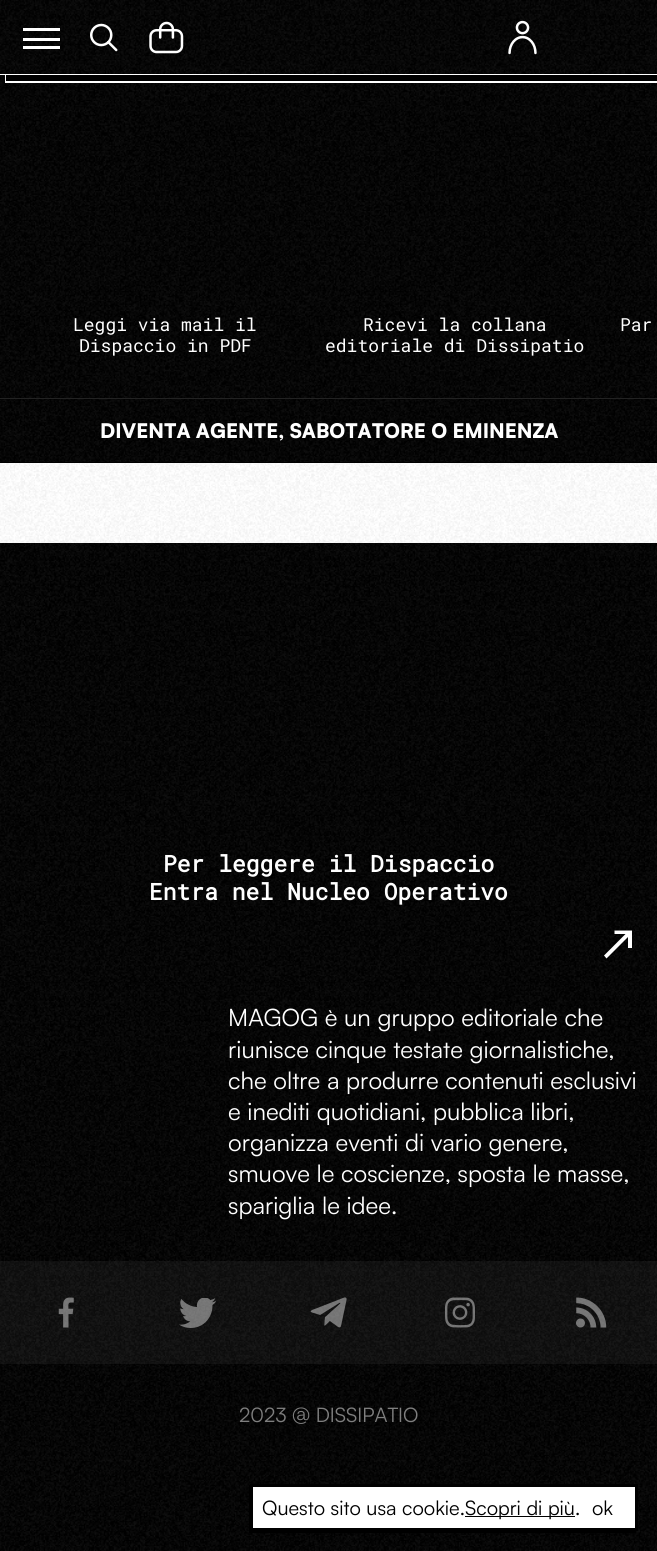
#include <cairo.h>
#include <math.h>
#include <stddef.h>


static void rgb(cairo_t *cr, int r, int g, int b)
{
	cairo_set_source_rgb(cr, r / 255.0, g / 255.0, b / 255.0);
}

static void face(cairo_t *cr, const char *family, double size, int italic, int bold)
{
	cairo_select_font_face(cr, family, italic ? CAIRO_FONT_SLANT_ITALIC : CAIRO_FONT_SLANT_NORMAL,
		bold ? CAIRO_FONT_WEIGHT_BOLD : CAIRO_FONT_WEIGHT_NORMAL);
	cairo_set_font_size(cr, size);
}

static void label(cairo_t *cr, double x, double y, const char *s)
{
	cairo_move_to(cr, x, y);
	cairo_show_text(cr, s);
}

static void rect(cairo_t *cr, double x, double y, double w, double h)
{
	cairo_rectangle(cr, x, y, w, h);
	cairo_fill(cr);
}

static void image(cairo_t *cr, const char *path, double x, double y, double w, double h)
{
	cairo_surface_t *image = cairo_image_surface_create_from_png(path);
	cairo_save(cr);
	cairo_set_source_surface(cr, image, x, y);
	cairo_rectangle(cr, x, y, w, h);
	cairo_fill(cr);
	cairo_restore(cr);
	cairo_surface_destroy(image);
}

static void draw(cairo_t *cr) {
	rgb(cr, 255, 255, 255);
	cairo_paint(cr);
	image(cr, "image0.png", 0, 463, 657, 80);
	rgb(cr, 0, 0, 0);
	rect(cr, 0, 75, 657, 388);
	image(cr, "image5.png", 0, 75, 657, 387);
	rgb(cr, 255, 255, 255);
	cairo_new_path(cr);
	cairo_move_to(cr, 5, 75);
	cairo_line_to(cr, 5, 83);
	cairo_line_to(cr, 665, 83);
	cairo_line_to(cr, 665, 5);
	cairo_line_to(cr, 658, 5);
	cairo_line_to(cr, 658, 75);
	cairo_close_path(cr);
	cairo_fill(cr);
	rgb(cr, 0, 0, 0);
	cairo_new_path(cr);
	cairo_move_to(cr, 6, 75);
	cairo_line_to(cr, 6, 81);
	cairo_line_to(cr, 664, 81);
	cairo_line_to(cr, 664, 6);
	cairo_line_to(cr, 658, 6);
	cairo_line_to(cr, 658, 75);
	cairo_close_path(cr);
	cairo_fill(cr);
	rect(cr, 0, 0, 657, 74);
	image(cr, "image1.png", 0, 0, 657, 74);
	rgb(cr, 255, 255, 255);
	rect(cr, 23, 28, 37, 3);
	rect(cr, 23, 38, 37, 3);
	rect(cr, 23, 46, 37, 3);
	image(cr, "image2.png", 90, 23, 28, 29);
	image(cr, "image3.png", 149, 21, 35, 33);
	image(cr, "image4.png", 508, 20, 29, 35);
	face(cr, "Roboto Mono", 18, 0, 0);
	label(cr, 73, 331, "Leggi via mail il");
	label(cr, 79, 352, "Dispaccio in PDF");
	label(cr, 363, 331, "Ricevi la collana");
	label(cr, 325, 352, "editoriale di Dissipatio");
	label(cr, 620, 331, "Par");
	rgb(cr, 34, 34, 34);
	rect(cr, 0, 398, 657, 1);
	face(cr, "Satoshi Black", 20, 0, 0);
	rgb(cr, 255, 255, 255);
	label(cr, 100, 438, "DIVENTA AGENTE, SABOTATORE O EMINENZA");
	rgb(cr, 0, 0, 0);
	rect(cr, 0, 543, 657, 1008);
	image(cr, "image6.png", 0, 543, 657, 439);
	face(cr, "Roboto Mono", 23, 0, 1);
	rgb(cr, 255, 255, 255);
	label(cr, 163, 872, "Per leggere il Dispaccio");
	label(cr, 149, 900, "Entra nel Nucleo Operativo");
	cairo_new_path(cr);
	cairo_move_to(cr, 606.5, 958.5);
	cairo_line_to(cr, 604, 955.5);
	cairo_line_to(cr, 625.5, 934);
	cairo_line_to(cr, 614.5, 934);
	cairo_line_to(cr, 614.5, 930.5);
	cairo_line_to(cr, 632, 930.5);
	cairo_line_to(cr, 632, 948);
	cairo_line_to(cr, 628, 948);
	cairo_line_to(cr, 628, 937);
	cairo_close_path(cr);
	cairo_fill(cr);
	image(cr, "image7.png", 0, 982, 657, 279);
	face(cr, "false", 24, 0, 0);
	label(cr, 228, 1026, "MAGOG è un gruppo editoriale che");
	label(cr, 228, 1058, "riunisce cinque testate giornalistiche,");
	label(cr, 228, 1089, "che oltre a produrre contenuti esclusivi");
	label(cr, 228, 1120, "e inediti quotidiani, pubblica libri,");
	label(cr, 228, 1151, "organizza eventi di vario genere,");
	label(cr, 228, 1182, "smuove le coscienze, sposta le masse,");
	label(cr, 228, 1214, "spariglia le idee.");
	image(cr, "image8.png", 0, 1261, 657, 290);
	cairo_set_source_rgba(cr, 1, 1, 1, 0.05);
	rect(cr, 0, 1261, 657, 103);
	image(cr, "image9.png", 58, 1297, 16, 31);
	image(cr, "image10.png", 179, 1298, 37, 30);
	image(cr, "image11.png", 310, 1297, 37, 31);
	image(cr, "image12.png", 445, 1297, 30, 31);
	image(cr, "image13.png", 576, 1297, 31, 31);
	face(cr, "false", 20, 0, 0);
	rgb(cr, 127, 127, 127);
	label(cr, 239, 1422, "2023 @ DISSIPATIO");
	rgb(cr, 0, 0, 0);
	cairo_new_path(cr);
	cairo_move_to(cr, 249, 1485);
	cairo_line_to(cr, 249, 1533);
	cairo_line_to(cr, 636, 1533);
	cairo_line_to(cr, 636, 1531);
	cairo_line_to(cr, 250, 1531);
	cairo_line_to(cr, 250, 1485);
	cairo_close_path(cr);
	cairo_fill(cr);
	rgb(cr, 255, 255, 255);
	cairo_rectangle(cr, 251.5, 1485.5, 385, 44);
	cairo_fill_preserve(cr);
	rgb(cr, 0, 0, 0);
	cairo_set_line_width(cr, 3);
	cairo_stroke(cr);
	label(cr, 262, 1515, "Questo sito usa cookie.");
	rect(cr, 465, 1516, 110, 1);
	label(cr, 465, 1515, "Scopri di più.");
	label(cr, 592, 1515, "ok");
}

int main(void) {
	cairo_surface_t *surface = cairo_image_surface_create(CAIRO_FORMAT_RGB24, 657, 1551);
	cairo_t *cr = cairo_create(surface);
	cairo_font_options_t *options = cairo_font_options_create();
	cairo_font_options_set_hint_metrics(options, CAIRO_HINT_METRICS_OFF);
	cairo_font_options_set_hint_style(options, CAIRO_HINT_STYLE_NONE);
	cairo_set_font_options(cr, options);
	cairo_set_miter_limit(cr, 4);
	draw(cr);
	cairo_surface_write_to_png(surface, "render.png");
	cairo_font_options_destroy(options);
	cairo_destroy(cr);
	cairo_surface_destroy(surface);
	return 0;
}
